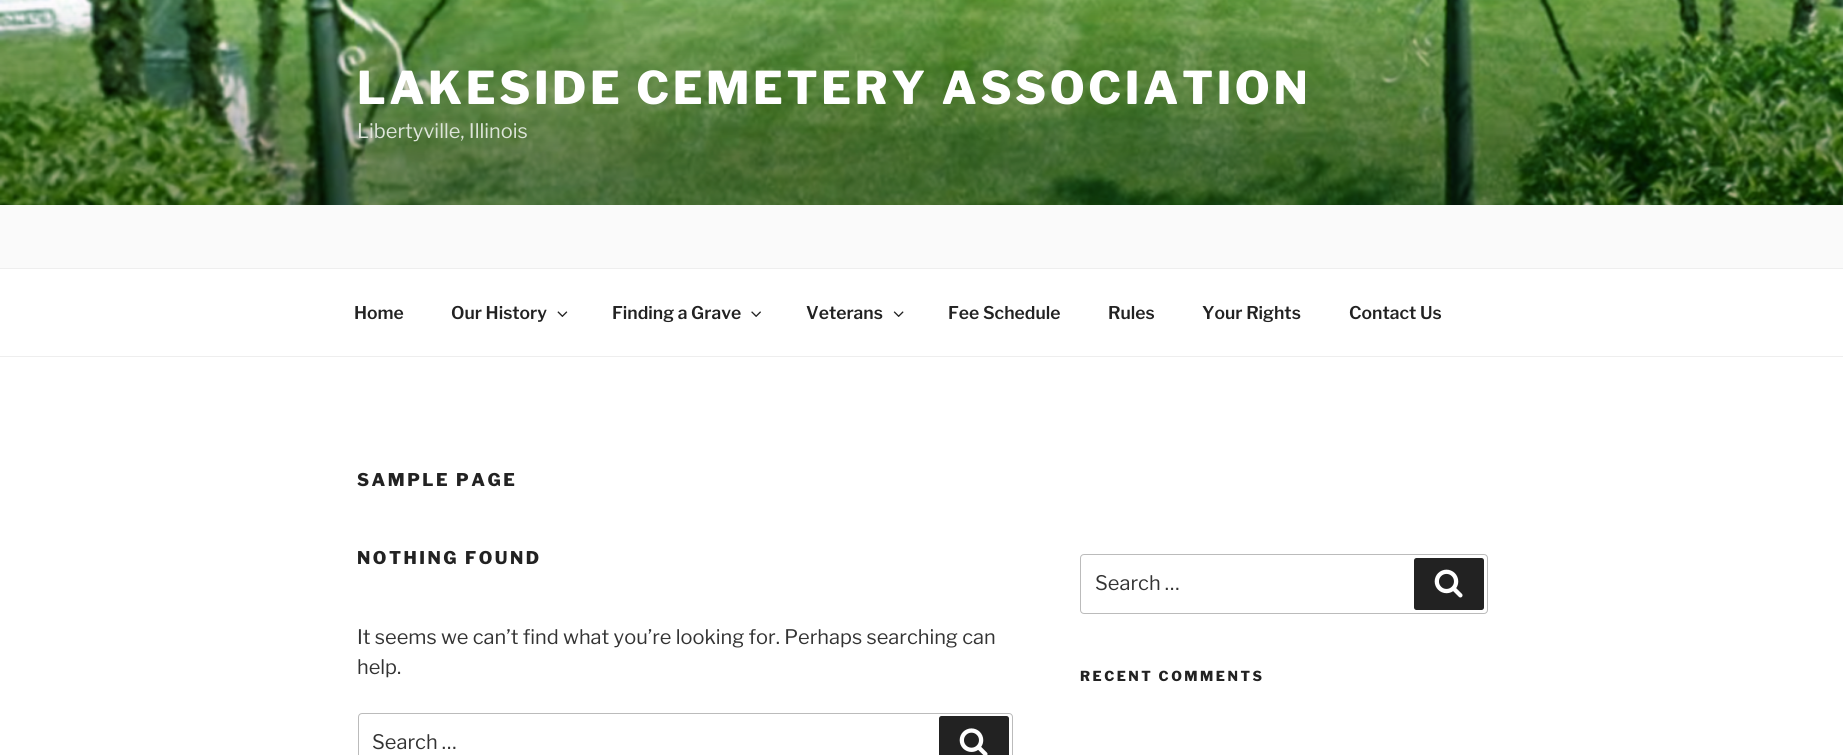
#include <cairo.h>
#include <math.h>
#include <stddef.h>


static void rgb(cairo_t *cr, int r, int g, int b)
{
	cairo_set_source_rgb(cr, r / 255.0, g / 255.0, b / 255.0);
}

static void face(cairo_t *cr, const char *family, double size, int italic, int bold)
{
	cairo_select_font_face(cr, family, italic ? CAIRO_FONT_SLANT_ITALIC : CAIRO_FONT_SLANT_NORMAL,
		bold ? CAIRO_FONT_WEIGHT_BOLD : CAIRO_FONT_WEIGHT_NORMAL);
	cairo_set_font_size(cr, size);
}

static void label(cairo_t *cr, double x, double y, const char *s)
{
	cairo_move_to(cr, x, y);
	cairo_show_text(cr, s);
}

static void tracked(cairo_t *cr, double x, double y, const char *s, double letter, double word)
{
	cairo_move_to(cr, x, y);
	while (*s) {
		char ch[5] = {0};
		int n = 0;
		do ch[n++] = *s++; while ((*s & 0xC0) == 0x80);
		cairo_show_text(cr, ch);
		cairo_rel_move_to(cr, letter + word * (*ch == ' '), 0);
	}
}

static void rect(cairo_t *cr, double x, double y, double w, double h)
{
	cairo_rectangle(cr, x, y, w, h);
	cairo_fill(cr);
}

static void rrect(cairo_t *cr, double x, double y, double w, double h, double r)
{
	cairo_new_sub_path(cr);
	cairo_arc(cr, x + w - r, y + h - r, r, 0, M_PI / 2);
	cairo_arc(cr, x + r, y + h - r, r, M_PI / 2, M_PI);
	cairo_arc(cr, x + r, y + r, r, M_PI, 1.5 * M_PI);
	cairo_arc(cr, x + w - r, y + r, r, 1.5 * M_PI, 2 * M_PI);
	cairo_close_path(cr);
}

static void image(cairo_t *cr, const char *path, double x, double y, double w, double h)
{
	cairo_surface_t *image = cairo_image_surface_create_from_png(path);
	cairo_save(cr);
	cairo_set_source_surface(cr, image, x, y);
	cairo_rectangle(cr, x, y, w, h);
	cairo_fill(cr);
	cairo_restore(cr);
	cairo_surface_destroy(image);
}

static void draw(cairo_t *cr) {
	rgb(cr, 255, 255, 255);
	cairo_paint(cr);
	rgb(cr, 250, 250, 250);
	rect(cr, 0, 205, 1843, 63);
	image(cr, "image0.png", 0, 0, 1843, 205);
	face(cr, "Libre Franklin Thin", 45, 0, 0);
	rgb(cr, 255, 255, 255);
	tracked(cr, 357, 104, "LAKESIDE CEMETERY ASSOCIATION", 3.6, 0);
	face(cr, "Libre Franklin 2 Thin", 20, 0, 0);
	rgb(cr, 222, 229, 218);
	label(cr, 357, 138, "Libertyville, Illinois");
	rgb(cr, 238, 238, 238);
	rect(cr, 0, 268, 1843, 1);
	rect(cr, 0, 356, 1843, 1);
	face(cr, "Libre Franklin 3 Thin", 17.5, 0, 0);
	rgb(cr, 34, 34, 34);
	label(cr, 354, 319, "Home");
	label(cr, 451, 319, "Our History");
	image(cr, "image1.png", 557, 311, 11, 6);
	label(cr, 612, 319, "Finding a Grave");
	image(cr, "image2.png", 751, 311, 10, 6);
	label(cr, 806, 319, "Veterans");
	image(cr, "image3.png", 893, 311, 11, 6);
	label(cr, 948, 319, "Fee Schedule");
	label(cr, 1108, 319, "Rules");
	label(cr, 1202, 319, "Your Rights");
	label(cr, 1349, 319, "Contact Us");
	face(cr, "Libre Franklin Thin", 17.5, 0, 0);
	tracked(cr, 357, 486, "SAMPLE PAGE", 2.5, 0);
	tracked(cr, 357, 564, "NOTHING FOUND", 2.5, 0);
	face(cr, "Libre Franklin 2 Thin", 20, 0, 0);
	rgb(cr, 51, 51, 51);
	label(cr, 357, 644, "It seems we can’t find what you’re looking for. Perhaps searching can");
	label(cr, 357, 674, "help.");
	rrect(cr, 358.5, 713.5, 654, 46, 3.5);
	rgb(cr, 187, 187, 187);
	cairo_set_line_width(cr, 1);
	cairo_stroke(cr);
	rgb(cr, 51, 51, 51);
	label(cr, 372, 749, "Search …");
	rgb(cr, 34, 34, 34);
	rrect(cr, 939, 716, 70, 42, 2.5);
	cairo_fill(cr);
	image(cr, "image4.png", 959, 728, 29, 27);
	rrect(cr, 1080.5, 554.5, 407, 59, 3.5);
	rgb(cr, 187, 187, 187);
	cairo_stroke(cr);
	rgb(cr, 51, 51, 51);
	label(cr, 1095, 590, "Search …");
	rgb(cr, 34, 34, 34);
	rrect(cr, 1414, 558, 70, 52, 2.5);
	cairo_fill(cr);
	image(cr, "image5.png", 1434, 569, 29, 29);
	face(cr, "Libre Franklin Thin", 13.75, 0, 0);
	tracked(cr, 1080, 681, "RECENT COMMENTS", 2.5, 0);
}

int main(void) {
	cairo_surface_t *surface = cairo_image_surface_create(CAIRO_FORMAT_RGB24, 1843, 755);
	cairo_t *cr = cairo_create(surface);
	cairo_font_options_t *options = cairo_font_options_create();
	cairo_font_options_set_hint_metrics(options, CAIRO_HINT_METRICS_OFF);
	cairo_font_options_set_hint_style(options, CAIRO_HINT_STYLE_NONE);
	cairo_set_font_options(cr, options);
	cairo_set_miter_limit(cr, 4);
	draw(cr);
	cairo_surface_write_to_png(surface, "render.png");
	cairo_font_options_destroy(options);
	cairo_destroy(cr);
	cairo_surface_destroy(surface);
	return 0;
}
